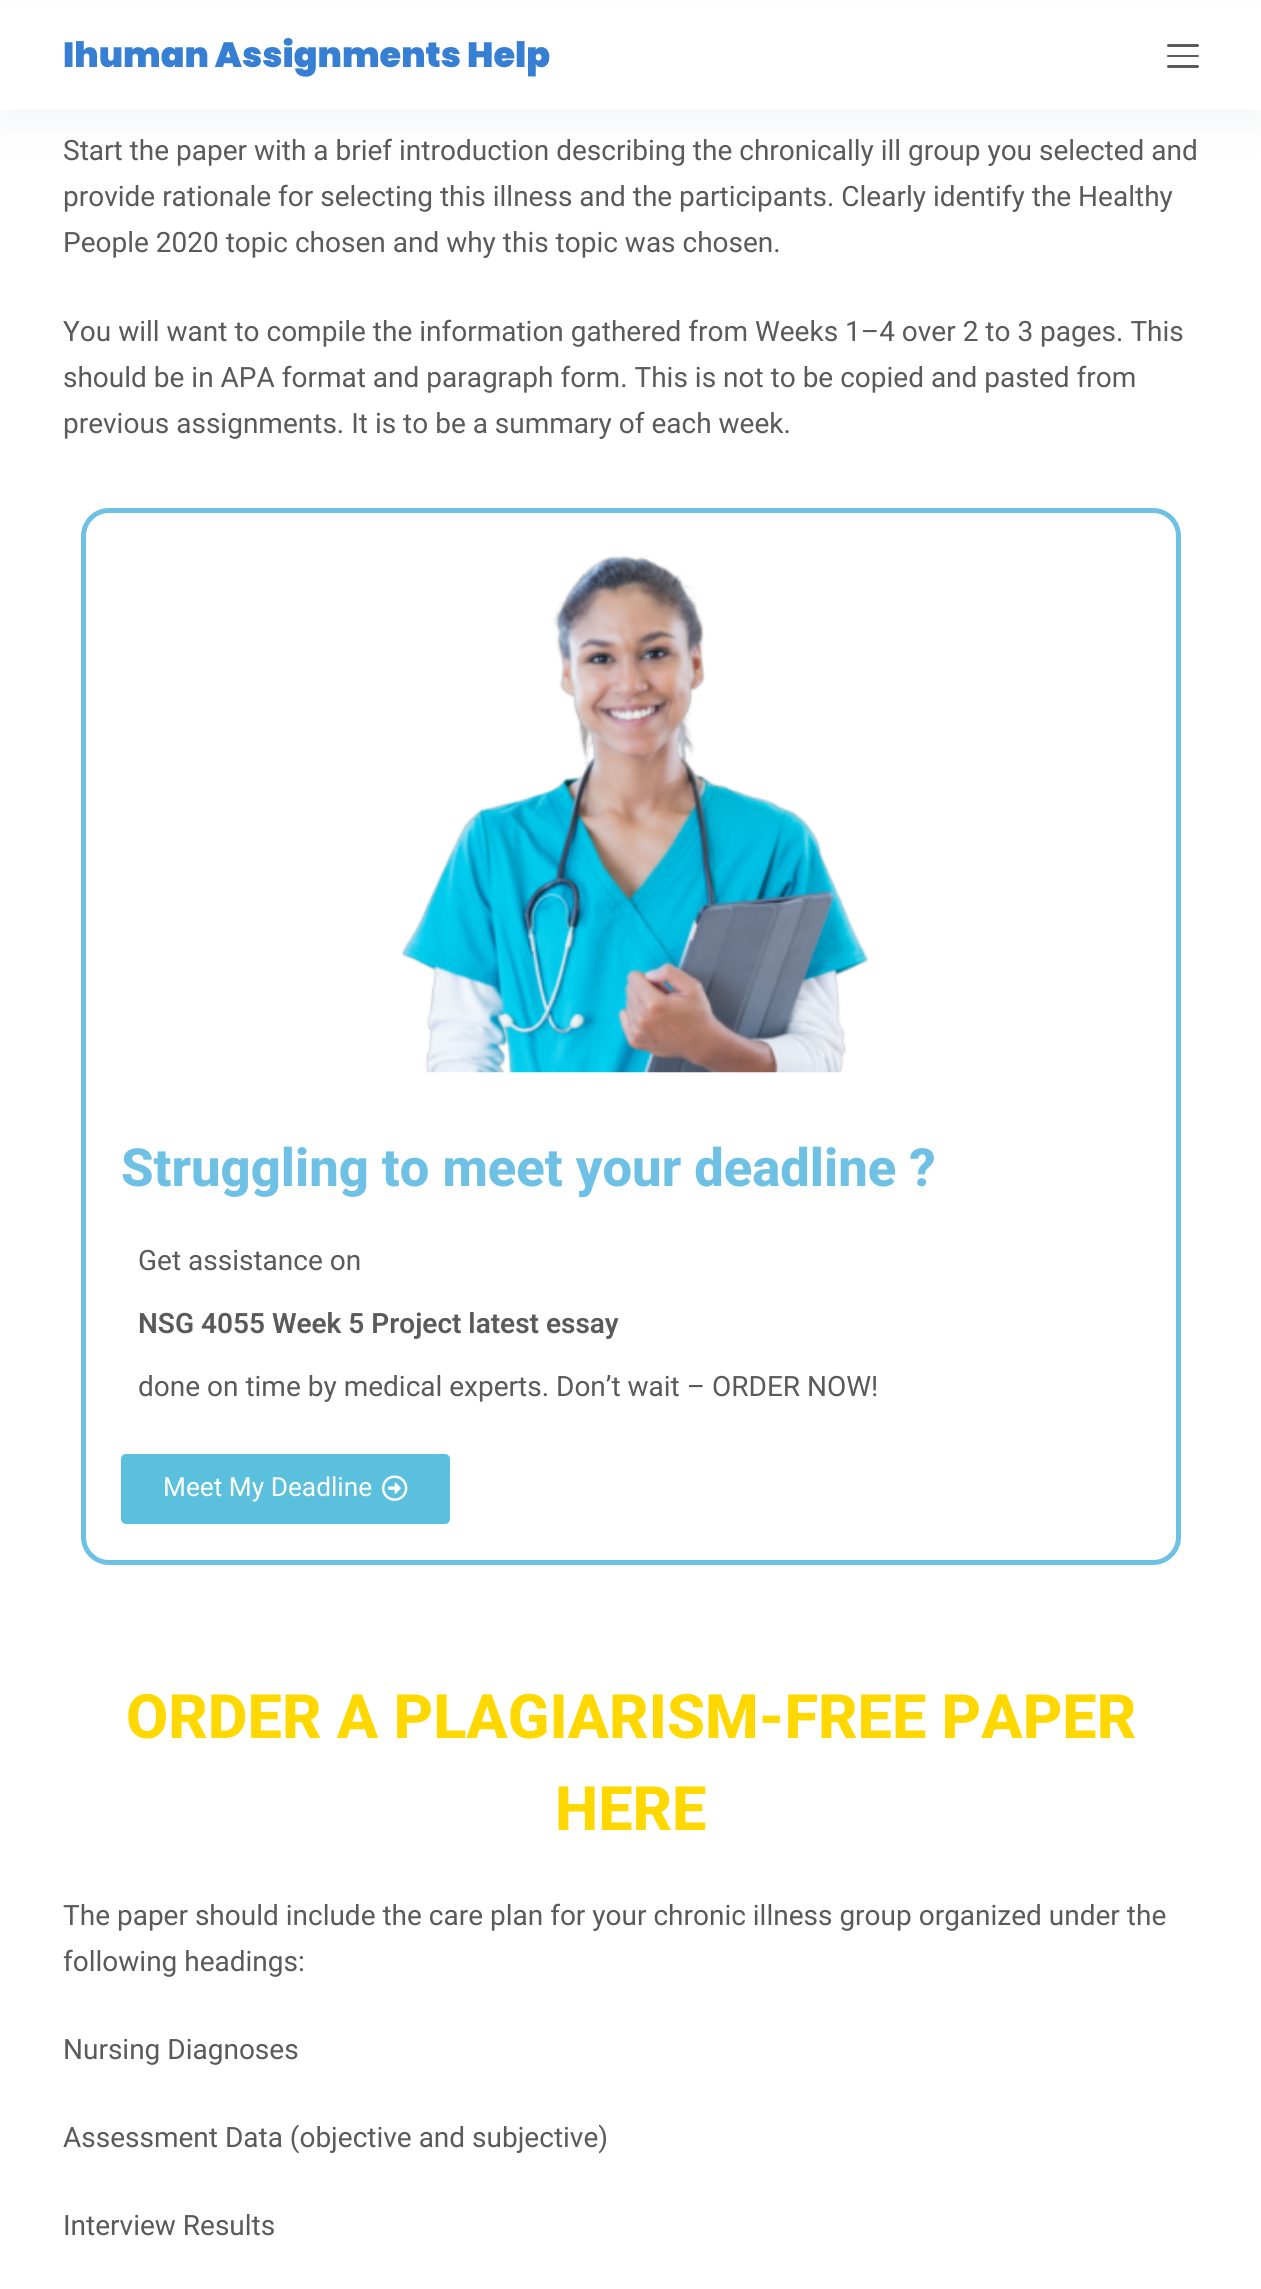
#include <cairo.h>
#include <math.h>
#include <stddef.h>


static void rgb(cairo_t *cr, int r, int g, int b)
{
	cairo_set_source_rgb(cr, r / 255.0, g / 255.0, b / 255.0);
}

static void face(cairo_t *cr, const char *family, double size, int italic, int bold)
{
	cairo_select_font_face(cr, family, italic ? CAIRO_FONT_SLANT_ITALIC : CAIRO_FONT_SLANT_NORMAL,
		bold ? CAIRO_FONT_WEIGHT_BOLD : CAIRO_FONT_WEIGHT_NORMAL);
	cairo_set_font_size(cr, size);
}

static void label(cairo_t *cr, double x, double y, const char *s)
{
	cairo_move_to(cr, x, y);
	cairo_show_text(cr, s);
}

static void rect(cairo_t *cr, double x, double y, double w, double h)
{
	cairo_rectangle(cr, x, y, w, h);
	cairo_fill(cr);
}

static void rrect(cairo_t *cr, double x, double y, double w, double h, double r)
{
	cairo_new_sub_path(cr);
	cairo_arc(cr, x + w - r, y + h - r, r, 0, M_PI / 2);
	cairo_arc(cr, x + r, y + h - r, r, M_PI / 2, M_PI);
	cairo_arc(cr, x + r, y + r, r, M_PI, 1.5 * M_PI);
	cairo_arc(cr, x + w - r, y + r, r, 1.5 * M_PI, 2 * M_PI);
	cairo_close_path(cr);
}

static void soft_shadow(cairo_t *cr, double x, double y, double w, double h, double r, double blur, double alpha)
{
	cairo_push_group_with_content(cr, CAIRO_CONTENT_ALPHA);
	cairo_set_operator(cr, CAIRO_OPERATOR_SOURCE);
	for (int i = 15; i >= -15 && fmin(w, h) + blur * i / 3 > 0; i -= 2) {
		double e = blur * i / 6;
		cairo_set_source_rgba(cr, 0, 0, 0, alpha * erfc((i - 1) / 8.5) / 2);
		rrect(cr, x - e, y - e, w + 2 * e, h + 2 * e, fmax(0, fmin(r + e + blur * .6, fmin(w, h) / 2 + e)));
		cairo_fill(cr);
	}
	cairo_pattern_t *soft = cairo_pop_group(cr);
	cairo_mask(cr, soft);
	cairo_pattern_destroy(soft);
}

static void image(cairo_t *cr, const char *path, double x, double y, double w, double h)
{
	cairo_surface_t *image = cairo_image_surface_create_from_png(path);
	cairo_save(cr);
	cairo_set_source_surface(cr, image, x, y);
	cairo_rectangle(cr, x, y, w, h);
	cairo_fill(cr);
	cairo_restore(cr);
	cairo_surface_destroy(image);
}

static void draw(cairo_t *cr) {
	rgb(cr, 255, 255, 255);
	cairo_paint(cr);
	rgb(cr, 44, 62, 80);
	soft_shadow(cr, 0, 18, 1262, 110, 0, 17.5, 0.05);
	rgb(cr, 255, 255, 255);
	rect(cr, 0, 6, 1261, 104);
	face(cr, "Poppins Black", 35, 0, 0);
	rgb(cr, 54, 127, 211);
	label(cr, 63, 67, "Ihuman Assignments Help");
	rgb(cr, 90, 90, 90);
	rrect(cr, 1167, 44, 32, 3, 1.5);
	cairo_fill(cr);
	rrect(cr, 1167, 55, 32, 2, 1);
	cairo_fill(cr);
	rrect(cr, 1167, 65, 32, 3, 1.5);
	cairo_fill(cr);
	face(cr, "Roboto", 28, 0, 0);
	label(cr, 63, 160, "Start the paper with a brief introduction describing the chronically ill group you selected and");
	label(cr, 63, 206, "provide rationale for selecting this illness and the participants. Clearly identify the Healthy");
	label(cr, 63, 252, "People 2020 topic chosen and why this topic was chosen.");
	label(cr, 63, 341, "You will want to compile the information gathered from Weeks 1–4 over 2 to 3 pages. This");
	label(cr, 63, 387, "should be in APA format and paragraph form. This is not to be copied and pasted from");
	label(cr, 63, 433, "previous assignments. It is to be a summary of each week.");
	rrect(cr, 83.5, 510.5, 1095, 1052, 25.5);
	rgb(cr, 110, 193, 228);
	cairo_set_line_width(cr, 5);
	cairo_stroke(cr);
	image(cr, "image0.png", 402, 555, 467, 518);
	face(cr, "Roboto ExtraBold", 52.5, 0, 0);
	label(cr, 121, 1186, "Struggling to meet your deadline ?");
	face(cr, "Roboto", 28, 0, 0);
	rgb(cr, 90, 90, 90);
	label(cr, 138, 1270, "Get assistance on");
	face(cr, "Roboto SemiBold", 28, 0, 0);
	label(cr, 138, 1333, "NSG 4055 Week 5 Project latest essay");
	face(cr, "Roboto", 28, 0, 0);
	label(cr, 138, 1396, "done on time by medical experts. Don’t wait – ORDER NOW!");
	rgb(cr, 91, 192, 222);
	rrect(cr, 121, 1454, 329, 70, 5);
	cairo_fill(cr);
	face(cr, "Roboto", 26.25, 0, 0);
	rgb(cr, 255, 255, 255);
	label(cr, 163, 1496, "Meet My Deadline");
	image(cr, "image1.png", 381, 1475, 27, 26);
	face(cr, "Roboto ExtraBold", 61.25, 0, 0);
	rgb(cr, 255, 216, 0);
	label(cr, 126, 1738, "ORDER A PLAGIARISM-FREE PAPER");
	label(cr, 555, 1830, "HERE");
	face(cr, "Roboto", 28, 0, 0);
	rgb(cr, 90, 90, 90);
	label(cr, 63, 1925, "The paper should include the care plan for your chronic illness group organized under the");
	label(cr, 63, 1971, "following headings:");
	label(cr, 63, 2059, "Nursing Diagnoses");
	label(cr, 63, 2147, "Assessment Data (objective and subjective)");
	label(cr, 63, 2235, "Interview Results");
}

int main(void) {
	cairo_surface_t *surface = cairo_image_surface_create(CAIRO_FORMAT_RGB24, 1261, 2289);
	cairo_t *cr = cairo_create(surface);
	cairo_font_options_t *options = cairo_font_options_create();
	cairo_font_options_set_hint_metrics(options, CAIRO_HINT_METRICS_OFF);
	cairo_font_options_set_hint_style(options, CAIRO_HINT_STYLE_NONE);
	cairo_set_font_options(cr, options);
	cairo_set_miter_limit(cr, 4);
	draw(cr);
	cairo_surface_write_to_png(surface, "render.png");
	cairo_font_options_destroy(options);
	cairo_destroy(cr);
	cairo_surface_destroy(surface);
	return 0;
}
